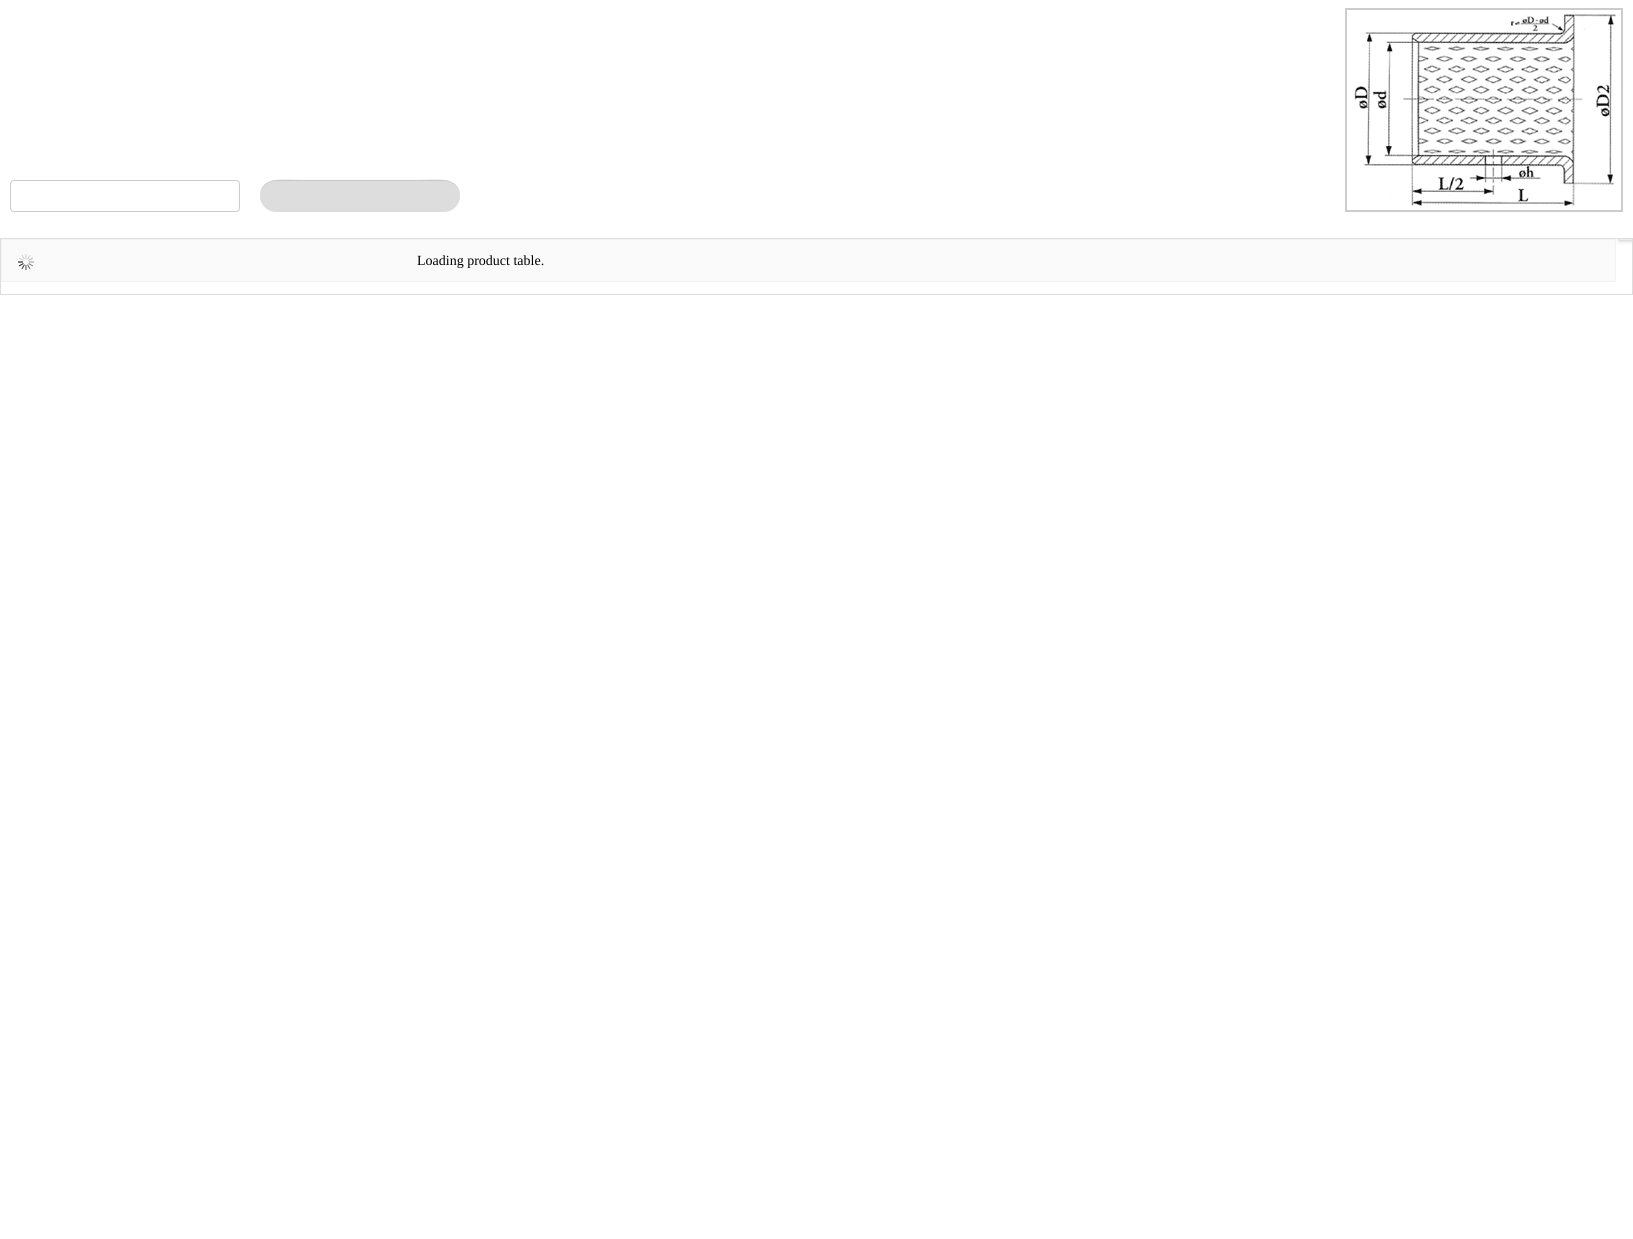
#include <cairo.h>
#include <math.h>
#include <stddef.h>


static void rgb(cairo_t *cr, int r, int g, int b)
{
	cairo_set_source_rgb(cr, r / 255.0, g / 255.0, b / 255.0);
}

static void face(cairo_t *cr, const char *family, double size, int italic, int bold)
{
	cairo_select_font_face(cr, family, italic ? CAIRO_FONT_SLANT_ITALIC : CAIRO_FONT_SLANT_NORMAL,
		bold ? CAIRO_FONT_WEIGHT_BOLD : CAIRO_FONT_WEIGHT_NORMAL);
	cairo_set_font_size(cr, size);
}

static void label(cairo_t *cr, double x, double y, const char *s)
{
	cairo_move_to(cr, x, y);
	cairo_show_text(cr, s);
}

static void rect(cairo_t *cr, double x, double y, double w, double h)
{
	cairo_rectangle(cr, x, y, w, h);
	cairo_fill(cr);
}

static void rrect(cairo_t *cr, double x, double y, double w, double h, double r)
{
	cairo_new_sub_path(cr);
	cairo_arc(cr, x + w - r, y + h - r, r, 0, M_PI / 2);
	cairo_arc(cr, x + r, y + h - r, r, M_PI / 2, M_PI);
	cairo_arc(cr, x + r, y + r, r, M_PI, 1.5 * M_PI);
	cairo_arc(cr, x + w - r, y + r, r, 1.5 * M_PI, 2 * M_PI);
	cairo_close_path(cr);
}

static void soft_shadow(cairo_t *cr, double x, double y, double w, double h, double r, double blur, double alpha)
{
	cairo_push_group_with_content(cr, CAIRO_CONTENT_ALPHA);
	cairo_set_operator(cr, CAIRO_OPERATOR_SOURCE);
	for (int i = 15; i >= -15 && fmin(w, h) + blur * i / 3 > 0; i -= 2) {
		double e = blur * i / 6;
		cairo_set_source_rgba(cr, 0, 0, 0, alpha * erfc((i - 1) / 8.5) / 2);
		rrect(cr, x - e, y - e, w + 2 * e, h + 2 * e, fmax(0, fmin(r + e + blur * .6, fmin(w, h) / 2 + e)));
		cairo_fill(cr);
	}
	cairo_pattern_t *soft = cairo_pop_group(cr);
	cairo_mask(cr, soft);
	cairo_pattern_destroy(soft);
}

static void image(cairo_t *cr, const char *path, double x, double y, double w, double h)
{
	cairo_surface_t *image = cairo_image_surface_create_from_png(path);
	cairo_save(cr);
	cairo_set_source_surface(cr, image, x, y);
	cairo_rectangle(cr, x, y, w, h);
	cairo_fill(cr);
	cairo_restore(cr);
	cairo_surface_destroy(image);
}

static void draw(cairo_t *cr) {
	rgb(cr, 255, 255, 255);
	cairo_paint(cr);
	rrect(cr, 10.5, 180.5, 229, 31, 3.5);
	rgb(cr, 204, 204, 204);
	cairo_set_line_width(cr, 1);
	cairo_stroke(cr);
	rgb(cr, 221, 221, 221);
	rrect(cr, 260, 180, 200, 32, 16);
	cairo_fill(cr);
	cairo_set_source_rgba(cr, 0, 0, 0, 0.1);
	cairo_new_path(cr);
	cairo_move_to(cr, 276, 181);
	cairo_line_to(cr, 444, 181);
	cairo_curve_to(cr, 453, 181, 460, 188, 460, 196);
	cairo_curve_to(cr, 461, 174, 428, 180, 416, 180);
	cairo_line_to(cr, 304, 180);
	cairo_curve_to(cr, 292, 180, 259, 174, 260, 196);
	cairo_curve_to(cr, 260, 188, 267, 181, 276, 181);
	cairo_close_path(cr);
	cairo_fill(cr);
	cairo_rectangle(cr, 1346, 9, 276, 202);
	rgb(cr, 204, 204, 204);
	cairo_set_line_width(cr, 2);
	cairo_stroke(cr);
	image(cr, "image0.png", 1354, 14, 263, 196);
	cairo_rectangle(cr, 0.5, 238.5, 1632, 56);
	rgb(cr, 222, 222, 222);
	cairo_set_line_width(cr, 1);
	cairo_stroke(cr);
	rgb(cr, 242, 242, 242);
	rect(cr, 1, 239, 1615, 1);
	rect(cr, 1615, 239, 1, 43);
	rgb(cr, 250, 250, 250);
	rect(cr, 2, 240, 1613, 41);
	cairo_save(cr);
	cairo_rectangle(cr, 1, 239, 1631, 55);
	cairo_clip(cr);
	rgb(cr, 0, 0, 0);
	soft_shadow(cr, 1620, 239, 12, 1, 0, 2.5, 0.3);
	cairo_restore(cr);
	rgb(cr, 238, 238, 238);
	rect(cr, 1620, 239, 12, 1);
	rgb(cr, 242, 242, 242);
	rect(cr, 1, 281, 1615, 1);
	rect(cr, 1, 239, 1, 43);
	image(cr, "image1.png", 18, 254, 16, 16);
	face(cr, "Liberation Serif", 14, 0, 0);
	rgb(cr, 0, 0, 0);
	label(cr, 417, 265, "Loading product table.");
}

int main(void) {
	cairo_surface_t *surface = cairo_image_surface_create(CAIRO_FORMAT_RGB24, 1633, 1239);
	cairo_t *cr = cairo_create(surface);
	cairo_font_options_t *options = cairo_font_options_create();
	cairo_font_options_set_hint_metrics(options, CAIRO_HINT_METRICS_OFF);
	cairo_font_options_set_hint_style(options, CAIRO_HINT_STYLE_NONE);
	cairo_set_font_options(cr, options);
	cairo_set_miter_limit(cr, 4);
	draw(cr);
	cairo_surface_write_to_png(surface, "render.png");
	cairo_font_options_destroy(options);
	cairo_destroy(cr);
	cairo_surface_destroy(surface);
	return 0;
}
